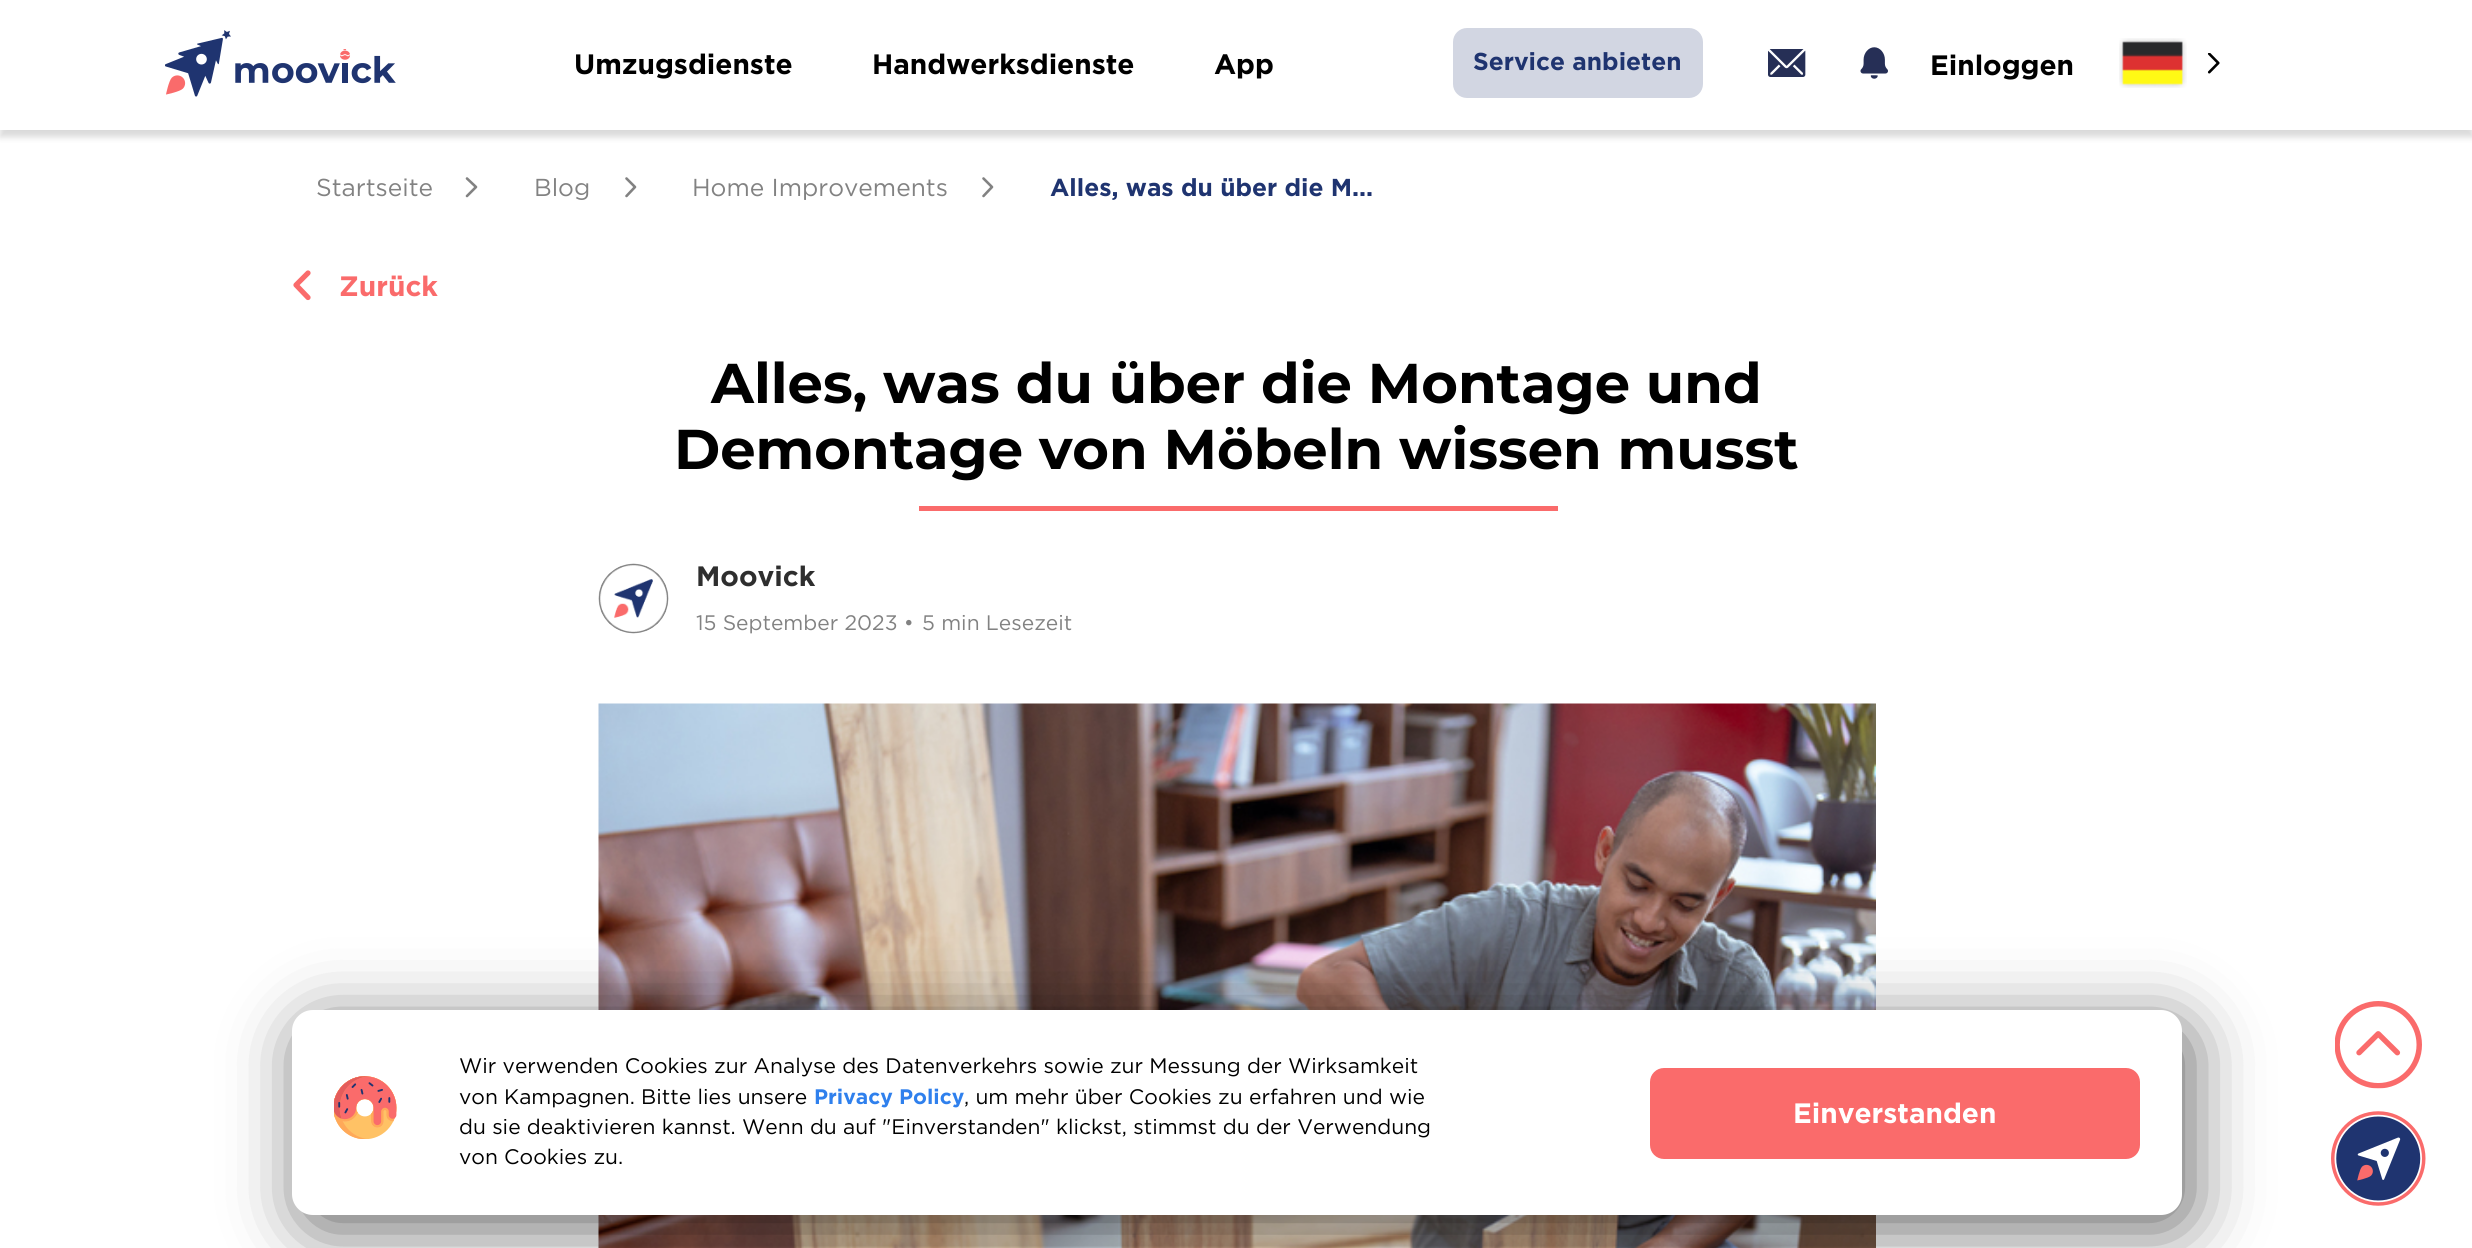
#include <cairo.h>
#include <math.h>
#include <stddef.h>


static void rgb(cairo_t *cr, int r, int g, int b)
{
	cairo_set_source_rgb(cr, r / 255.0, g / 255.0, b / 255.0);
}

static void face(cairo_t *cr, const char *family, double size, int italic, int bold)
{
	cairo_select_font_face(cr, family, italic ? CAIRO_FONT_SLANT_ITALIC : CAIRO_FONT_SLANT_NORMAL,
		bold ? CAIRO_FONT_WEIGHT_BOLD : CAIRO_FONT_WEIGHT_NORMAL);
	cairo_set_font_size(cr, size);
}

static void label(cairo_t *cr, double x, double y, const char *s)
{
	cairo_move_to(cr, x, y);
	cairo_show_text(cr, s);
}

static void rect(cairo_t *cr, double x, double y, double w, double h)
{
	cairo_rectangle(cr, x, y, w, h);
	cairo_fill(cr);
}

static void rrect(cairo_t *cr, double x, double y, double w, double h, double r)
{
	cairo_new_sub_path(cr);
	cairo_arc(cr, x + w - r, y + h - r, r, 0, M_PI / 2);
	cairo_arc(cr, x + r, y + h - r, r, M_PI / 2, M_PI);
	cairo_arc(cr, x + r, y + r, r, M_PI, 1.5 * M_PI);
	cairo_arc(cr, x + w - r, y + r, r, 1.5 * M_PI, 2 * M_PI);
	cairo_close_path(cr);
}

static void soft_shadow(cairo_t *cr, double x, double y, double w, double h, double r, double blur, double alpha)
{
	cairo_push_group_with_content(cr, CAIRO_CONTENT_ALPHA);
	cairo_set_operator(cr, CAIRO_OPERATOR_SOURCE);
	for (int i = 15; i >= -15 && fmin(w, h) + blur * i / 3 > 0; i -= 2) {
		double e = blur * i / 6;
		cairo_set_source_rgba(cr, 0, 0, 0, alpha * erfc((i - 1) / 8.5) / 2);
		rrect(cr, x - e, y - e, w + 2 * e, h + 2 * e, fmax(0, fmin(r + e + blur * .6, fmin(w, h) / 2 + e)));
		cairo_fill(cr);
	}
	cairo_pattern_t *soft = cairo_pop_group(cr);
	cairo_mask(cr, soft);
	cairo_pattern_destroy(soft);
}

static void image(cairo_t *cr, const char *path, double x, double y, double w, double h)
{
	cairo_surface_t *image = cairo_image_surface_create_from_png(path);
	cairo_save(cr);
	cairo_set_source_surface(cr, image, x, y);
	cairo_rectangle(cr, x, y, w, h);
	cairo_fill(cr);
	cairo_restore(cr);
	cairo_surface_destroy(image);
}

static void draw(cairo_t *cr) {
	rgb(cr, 255, 255, 255);
	cairo_paint(cr);
	rgb(cr, 0, 0, 0);
	soft_shadow(cr, 0, 4, 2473, 133, 0, 3.5, 0.15);
	rgb(cr, 255, 255, 255);
	rect(cr, 0, 0, 2472, 130);
	image(cr, "image0.png", 165, 30, 231, 67);
	face(cr, "Gotham", 28, 0, 1);
	rgb(cr, 0, 0, 0);
	label(cr, 574, 74, "Umzugsdienste");
	label(cr, 872, 74, "Handwerksdienste");
	label(cr, 1214, 74, "App");
	rgb(cr, 210, 214, 226);
	rrect(cr, 1453, 28, 250, 70, 14);
	cairo_fill(cr);
	face(cr, "Gotham", 24.5, 0, 1);
	rgb(cr, 31, 52, 112);
	label(cr, 1473, 70, "Service anbieten");
	image(cr, "image1.png", 1768, 49, 38, 28);
	image(cr, "image2.png", 1860, 47, 28, 32);
	face(cr, "Gotham", 28, 0, 1);
	rgb(cr, 0, 0, 0);
	label(cr, 1930, 75, "Einloggen");
	image(cr, "image3.png", 2119, 38, 68, 50);
	image(cr, "image4.png", 2207, 53, 13, 21);
	face(cr, "Gotham", 24.5, 0, 0);
	rgb(cr, 130, 130, 130);
	label(cr, 316, 196, "Startseite");
	cairo_new_path(cr);
	cairo_move_to(cr, 467, 178.5);
	cairo_line_to(cr, 476, 187);
	cairo_line_to(cr, 467, 196);
	cairo_set_line_width(cr, 2.6);
	cairo_set_line_cap(cr, CAIRO_LINE_CAP_ROUND);
	cairo_set_line_join(cr, CAIRO_LINE_JOIN_ROUND);
	cairo_stroke(cr);
	label(cr, 534, 196, "Blog");
	cairo_new_path(cr);
	cairo_move_to(cr, 626.5, 178.5);
	cairo_line_to(cr, 635, 187);
	cairo_line_to(cr, 626.5, 196);
	cairo_stroke(cr);
	label(cr, 692, 196, "Home Improvements");
	cairo_new_path(cr);
	cairo_move_to(cr, 983.5, 178.5);
	cairo_line_to(cr, 992, 187);
	cairo_line_to(cr, 983.5, 196);
	cairo_stroke(cr);
	face(cr, "Gotham", 24.5, 0, 1);
	rgb(cr, 31, 52, 112);
	label(cr, 1050, 196, "Alles, was du über die M...");
	cairo_new_path(cr);
	cairo_move_to(cr, 308, 297.5);
	cairo_line_to(cr, 296, 285);
	cairo_line_to(cr, 308, 273);
	rgb(cr, 250, 107, 107);
	cairo_set_line_width(cr, 5.2);
	cairo_stroke(cr);
	face(cr, "Gotham", 28, 0, 1);
	label(cr, 339, 296, "Zurück");
	face(cr, "Montserrat", 56, 0, 1);
	rgb(cr, 0, 0, 0);
	label(cr, 711, 403, "Alles, was du über die Montage und");
	label(cr, 674, 469, "Demontage von Möbeln wissen musst");
	rgb(cr, 250, 107, 107);
	rect(cr, 919, 506, 639, 5);
	image(cr, "image5.png", 598, 563, 71, 71);
	face(cr, "Gotham", 28, 0, 1);
	rgb(cr, 46, 46, 46);
	label(cr, 696, 586, "Moovick");
	face(cr, "Gotham", 21, 0, 0);
	rgb(cr, 130, 130, 130);
	label(cr, 696, 630, "15 September 2023 •");
	label(cr, 922, 630, "5 min Lesezeit");
	image(cr, "image6.png", 598, 703, 1278, 545);
	image(cr, "image7.png", 2335, 1001, 87, 88);
	rgb(cr, 0, 0, 0);
	soft_shadow(cr, 301, 1024, 1890, 205, 21, 35, 0.6);
	rgb(cr, 255, 255, 255);
	rrect(cr, 292, 1010, 1890, 205, 21);
	cairo_fill(cr);
	image(cr, "image8.png", 334, 1076, 63, 63);
	rgb(cr, 0, 0, 0);
	label(cr, 459, 1073, "Wir verwenden Cookies zur Analyse des Datenverkehrs sowie zur Messung der Wirksamkeit");
	label(cr, 459, 1104, "von Kampagnen. Bitte lies unsere");
	face(cr, "Gotham", 21, 0, 1);
	rgb(cr, 47, 128, 237);
	label(cr, 814, 1104, "Privacy Policy");
	face(cr, "Gotham", 21, 0, 0);
	rgb(cr, 0, 0, 0);
	label(cr, 964, 1104, ", um mehr über Cookies zu erfahren und wie");
	label(cr, 459, 1134, "du sie deaktivieren kannst. Wenn du auf \"Einverstanden\" klickst, stimmst du der Verwendung");
	label(cr, 459, 1164, "von Cookies zu.");
	rgb(cr, 250, 107, 107);
	rrect(cr, 1650, 1068, 490, 91, 14);
	cairo_fill(cr);
	face(cr, "Gotham", 28, 0, 1);
	rgb(cr, 255, 255, 255);
	label(cr, 1793, 1123, "Einverstanden");
	image(cr, "image9.png", 2331, 1111, 95, 95);
}

int main(void) {
	cairo_surface_t *surface = cairo_image_surface_create(CAIRO_FORMAT_RGB24, 2472, 1248);
	cairo_t *cr = cairo_create(surface);
	cairo_font_options_t *options = cairo_font_options_create();
	cairo_font_options_set_hint_metrics(options, CAIRO_HINT_METRICS_OFF);
	cairo_font_options_set_hint_style(options, CAIRO_HINT_STYLE_NONE);
	cairo_set_font_options(cr, options);
	cairo_set_miter_limit(cr, 4);
	draw(cr);
	cairo_surface_write_to_png(surface, "render.png");
	cairo_font_options_destroy(options);
	cairo_destroy(cr);
	cairo_surface_destroy(surface);
	return 0;
}
